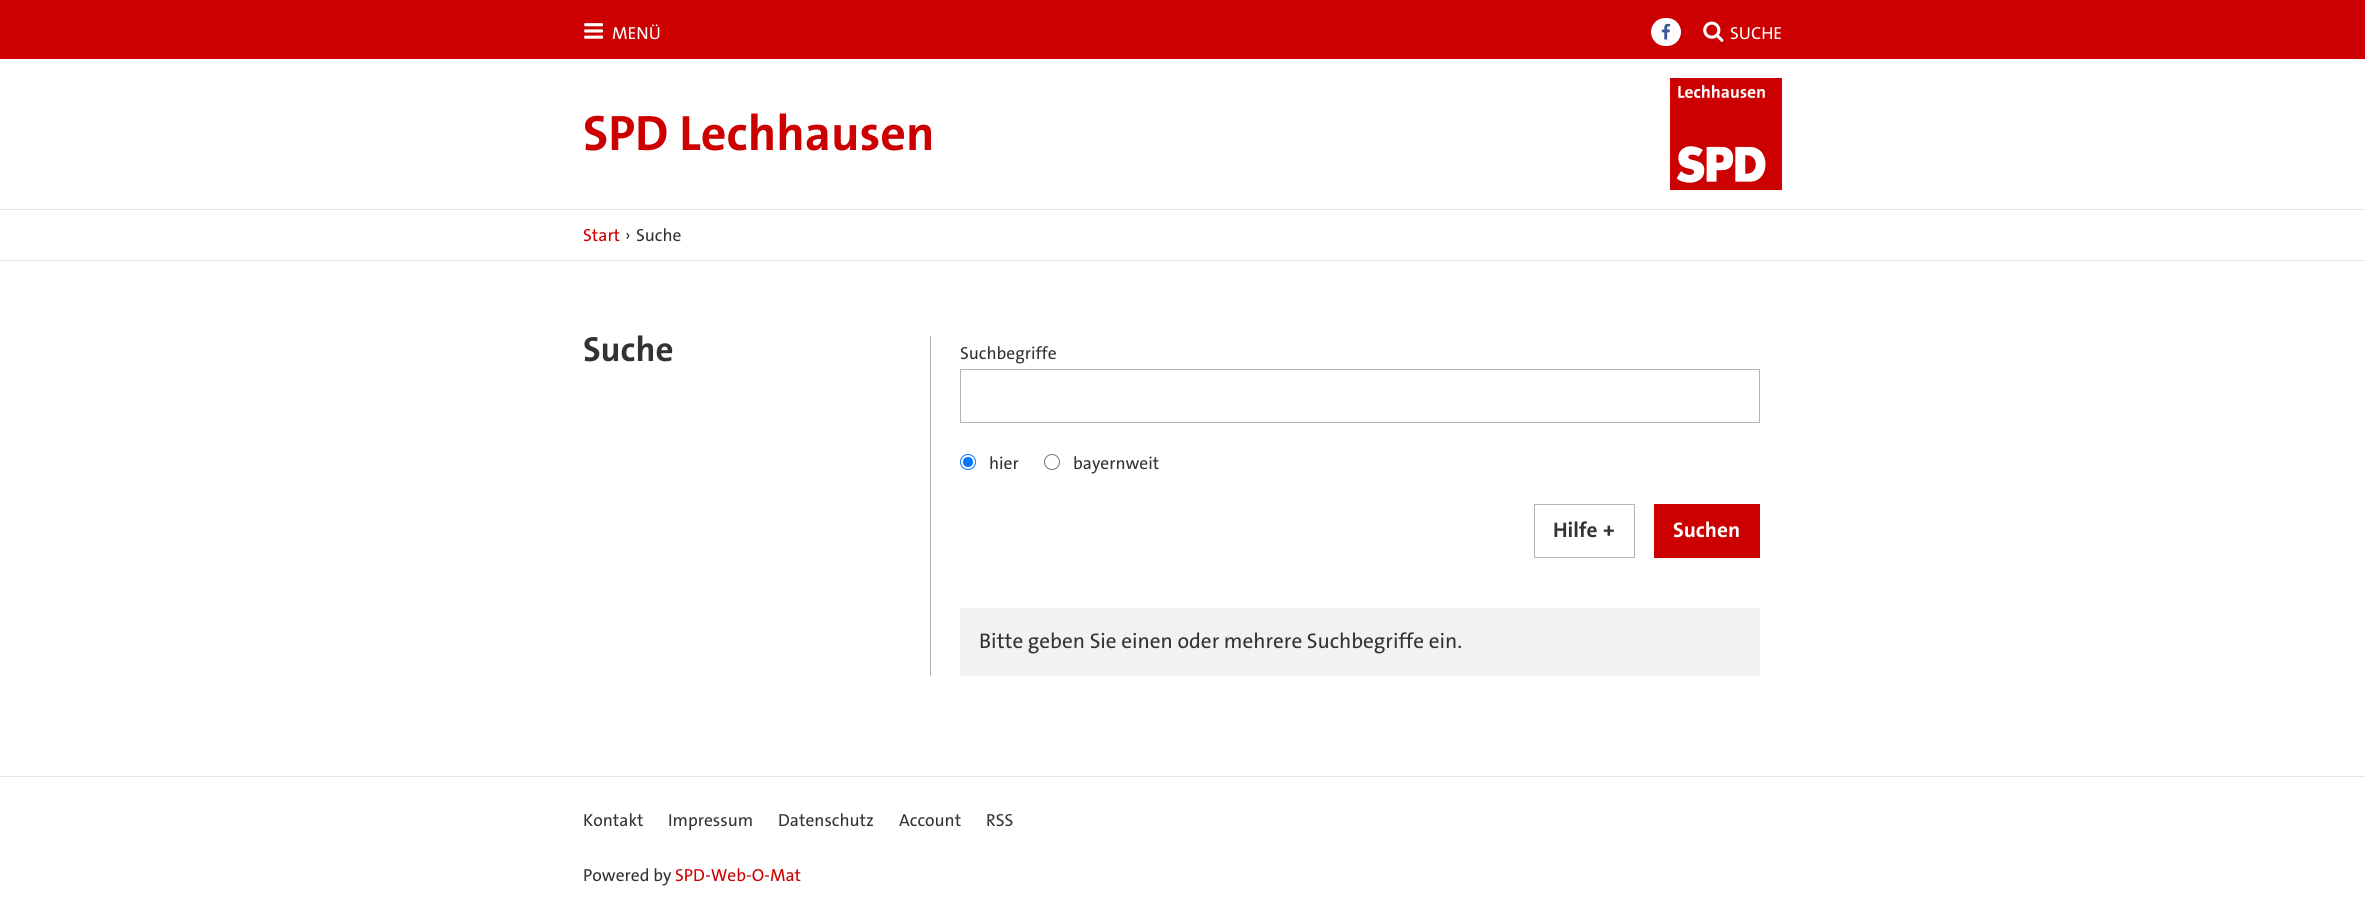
#include <cairo.h>
#include <math.h>
#include <stddef.h>


static void rgb(cairo_t *cr, int r, int g, int b)
{
	cairo_set_source_rgb(cr, r / 255.0, g / 255.0, b / 255.0);
}

static void face(cairo_t *cr, const char *family, double size, int italic, int bold)
{
	cairo_select_font_face(cr, family, italic ? CAIRO_FONT_SLANT_ITALIC : CAIRO_FONT_SLANT_NORMAL,
		bold ? CAIRO_FONT_WEIGHT_BOLD : CAIRO_FONT_WEIGHT_NORMAL);
	cairo_set_font_size(cr, size);
}

static void label(cairo_t *cr, double x, double y, const char *s)
{
	cairo_move_to(cr, x, y);
	cairo_show_text(cr, s);
}

static void rect(cairo_t *cr, double x, double y, double w, double h)
{
	cairo_rectangle(cr, x, y, w, h);
	cairo_fill(cr);
}

static void rrect(cairo_t *cr, double x, double y, double w, double h, double r)
{
	cairo_new_sub_path(cr);
	cairo_arc(cr, x + w - r, y + h - r, r, 0, M_PI / 2);
	cairo_arc(cr, x + r, y + h - r, r, M_PI / 2, M_PI);
	cairo_arc(cr, x + r, y + r, r, M_PI, 1.5 * M_PI);
	cairo_arc(cr, x + w - r, y + r, r, 1.5 * M_PI, 2 * M_PI);
	cairo_close_path(cr);
}

static void image(cairo_t *cr, const char *path, double x, double y, double w, double h)
{
	cairo_surface_t *image = cairo_image_surface_create_from_png(path);
	cairo_save(cr);
	cairo_set_source_surface(cr, image, x, y);
	cairo_rectangle(cr, x, y, w, h);
	cairo_fill(cr);
	cairo_restore(cr);
	cairo_surface_destroy(image);
}

static void draw(cairo_t *cr) {
	rgb(cr, 255, 255, 255);
	cairo_paint(cr);
	rgb(cr, 204, 0, 0);
	rect(cr, 0, 0, 2365, 59);
	image(cr, "image0.png", 584, 23, 19, 16);
	face(cr, "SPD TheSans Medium", 17.5, 0, 0);
	rgb(cr, 255, 255, 255);
	label(cr, 612, 39, "MENÜ");
	rrect(cr, 1651, 18, 30, 28, 14);
	cairo_fill(cr);
	image(cr, "image1.png", 1661, 24, 10, 16);
	image(cr, "image2.png", 1703, 21, 21, 21);
	label(cr, 1730, 39, "SUCHE");
	rgb(cr, 229, 229, 229);
	rect(cr, 0, 209, 2365, 1);
	face(cr, "SPD TheSans", 50, 0, 1);
	rgb(cr, 204, 0, 0);
	label(cr, 583, 150, "SPD Lechhausen");
	image(cr, "image3.png", 1670, 78, 112, 112);
	rgb(cr, 229, 229, 229);
	rect(cr, 0, 260, 2365, 1);
	face(cr, "SPD TheSans Medium", 17.5, 0, 0);
	rgb(cr, 204, 0, 0);
	label(cr, 583, 241, "Start");
	rgb(cr, 51, 51, 51);
	label(cr, 625, 241, "›");
	label(cr, 636, 241, "Suche");
	face(cr, "SPD TheSans", 35, 0, 1);
	label(cr, 583, 361, "Suche");
	rgb(cr, 179, 179, 179);
	rect(cr, 930, 336, 1, 340);
	face(cr, "SPD TheSans Medium", 17.5, 0, 0);
	rgb(cr, 51, 51, 51);
	label(cr, 960, 359, "Suchbegriffe");
	cairo_rectangle(cr, 960.5, 369.5, 799, 53);
	rgb(cr, 179, 179, 179);
	cairo_set_line_width(cr, 1);
	cairo_stroke(cr);
	cairo_arc(cr, 968, 462, 7.5, 0, 2 * M_PI);
	rgb(cr, 0, 117, 255);
	cairo_stroke(cr);
	cairo_arc(cr, 968, 462, 5, 0, 2 * M_PI);
	cairo_fill(cr);
	rgb(cr, 51, 51, 51);
	label(cr, 989, 469, "hier");
	cairo_new_path(cr);
	cairo_arc(cr, 1052, 462, 7.5, 0, 2 * M_PI);
	rgb(cr, 118, 118, 118);
	cairo_stroke(cr);
	rgb(cr, 51, 51, 51);
	label(cr, 1073, 469, "bayernweit");
	cairo_rectangle(cr, 1534.5, 504.5, 100, 53);
	rgb(cr, 179, 179, 179);
	cairo_stroke(cr);
	face(cr, "SPD TheSans", 21.25, 0, 1);
	rgb(cr, 51, 51, 51);
	label(cr, 1553, 537, "Hilfe");
	label(cr, 1603, 537, "+");
	rgb(cr, 204, 0, 0);
	rect(cr, 1654, 504, 106, 54);
	rgb(cr, 255, 255, 255);
	label(cr, 1673, 537, "Suchen");
	rgb(cr, 242, 242, 242);
	rect(cr, 960, 608, 800, 68);
	face(cr, "SPD TheSans Medium", 21.25, 0, 0);
	rgb(cr, 51, 51, 51);
	label(cr, 979, 648, "Bitte geben Sie einen oder mehrere Suchbegriffe ein.");
	rgb(cr, 229, 229, 229);
	rect(cr, 0, 776, 2365, 1);
	face(cr, "SPD TheSans Medium", 17.5, 0, 0);
	rgb(cr, 51, 51, 51);
	label(cr, 583, 826, "Kontakt");
	label(cr, 668, 826, "Impressum");
	label(cr, 778, 826, "Datenschutz");
	label(cr, 899, 826, "Account");
	label(cr, 986, 826, "RSS");
	label(cr, 583, 881, "Powered by");
	rgb(cr, 204, 0, 0);
	label(cr, 675, 881, "SPD-Web-O-Mat");
}

int main(void) {
	cairo_surface_t *surface = cairo_image_surface_create(CAIRO_FORMAT_RGB24, 2365, 908);
	cairo_t *cr = cairo_create(surface);
	cairo_font_options_t *options = cairo_font_options_create();
	cairo_font_options_set_hint_metrics(options, CAIRO_HINT_METRICS_OFF);
	cairo_font_options_set_hint_style(options, CAIRO_HINT_STYLE_NONE);
	cairo_set_font_options(cr, options);
	cairo_set_miter_limit(cr, 4);
	draw(cr);
	cairo_surface_write_to_png(surface, "render.png");
	cairo_font_options_destroy(options);
	cairo_destroy(cr);
	cairo_surface_destroy(surface);
	return 0;
}
